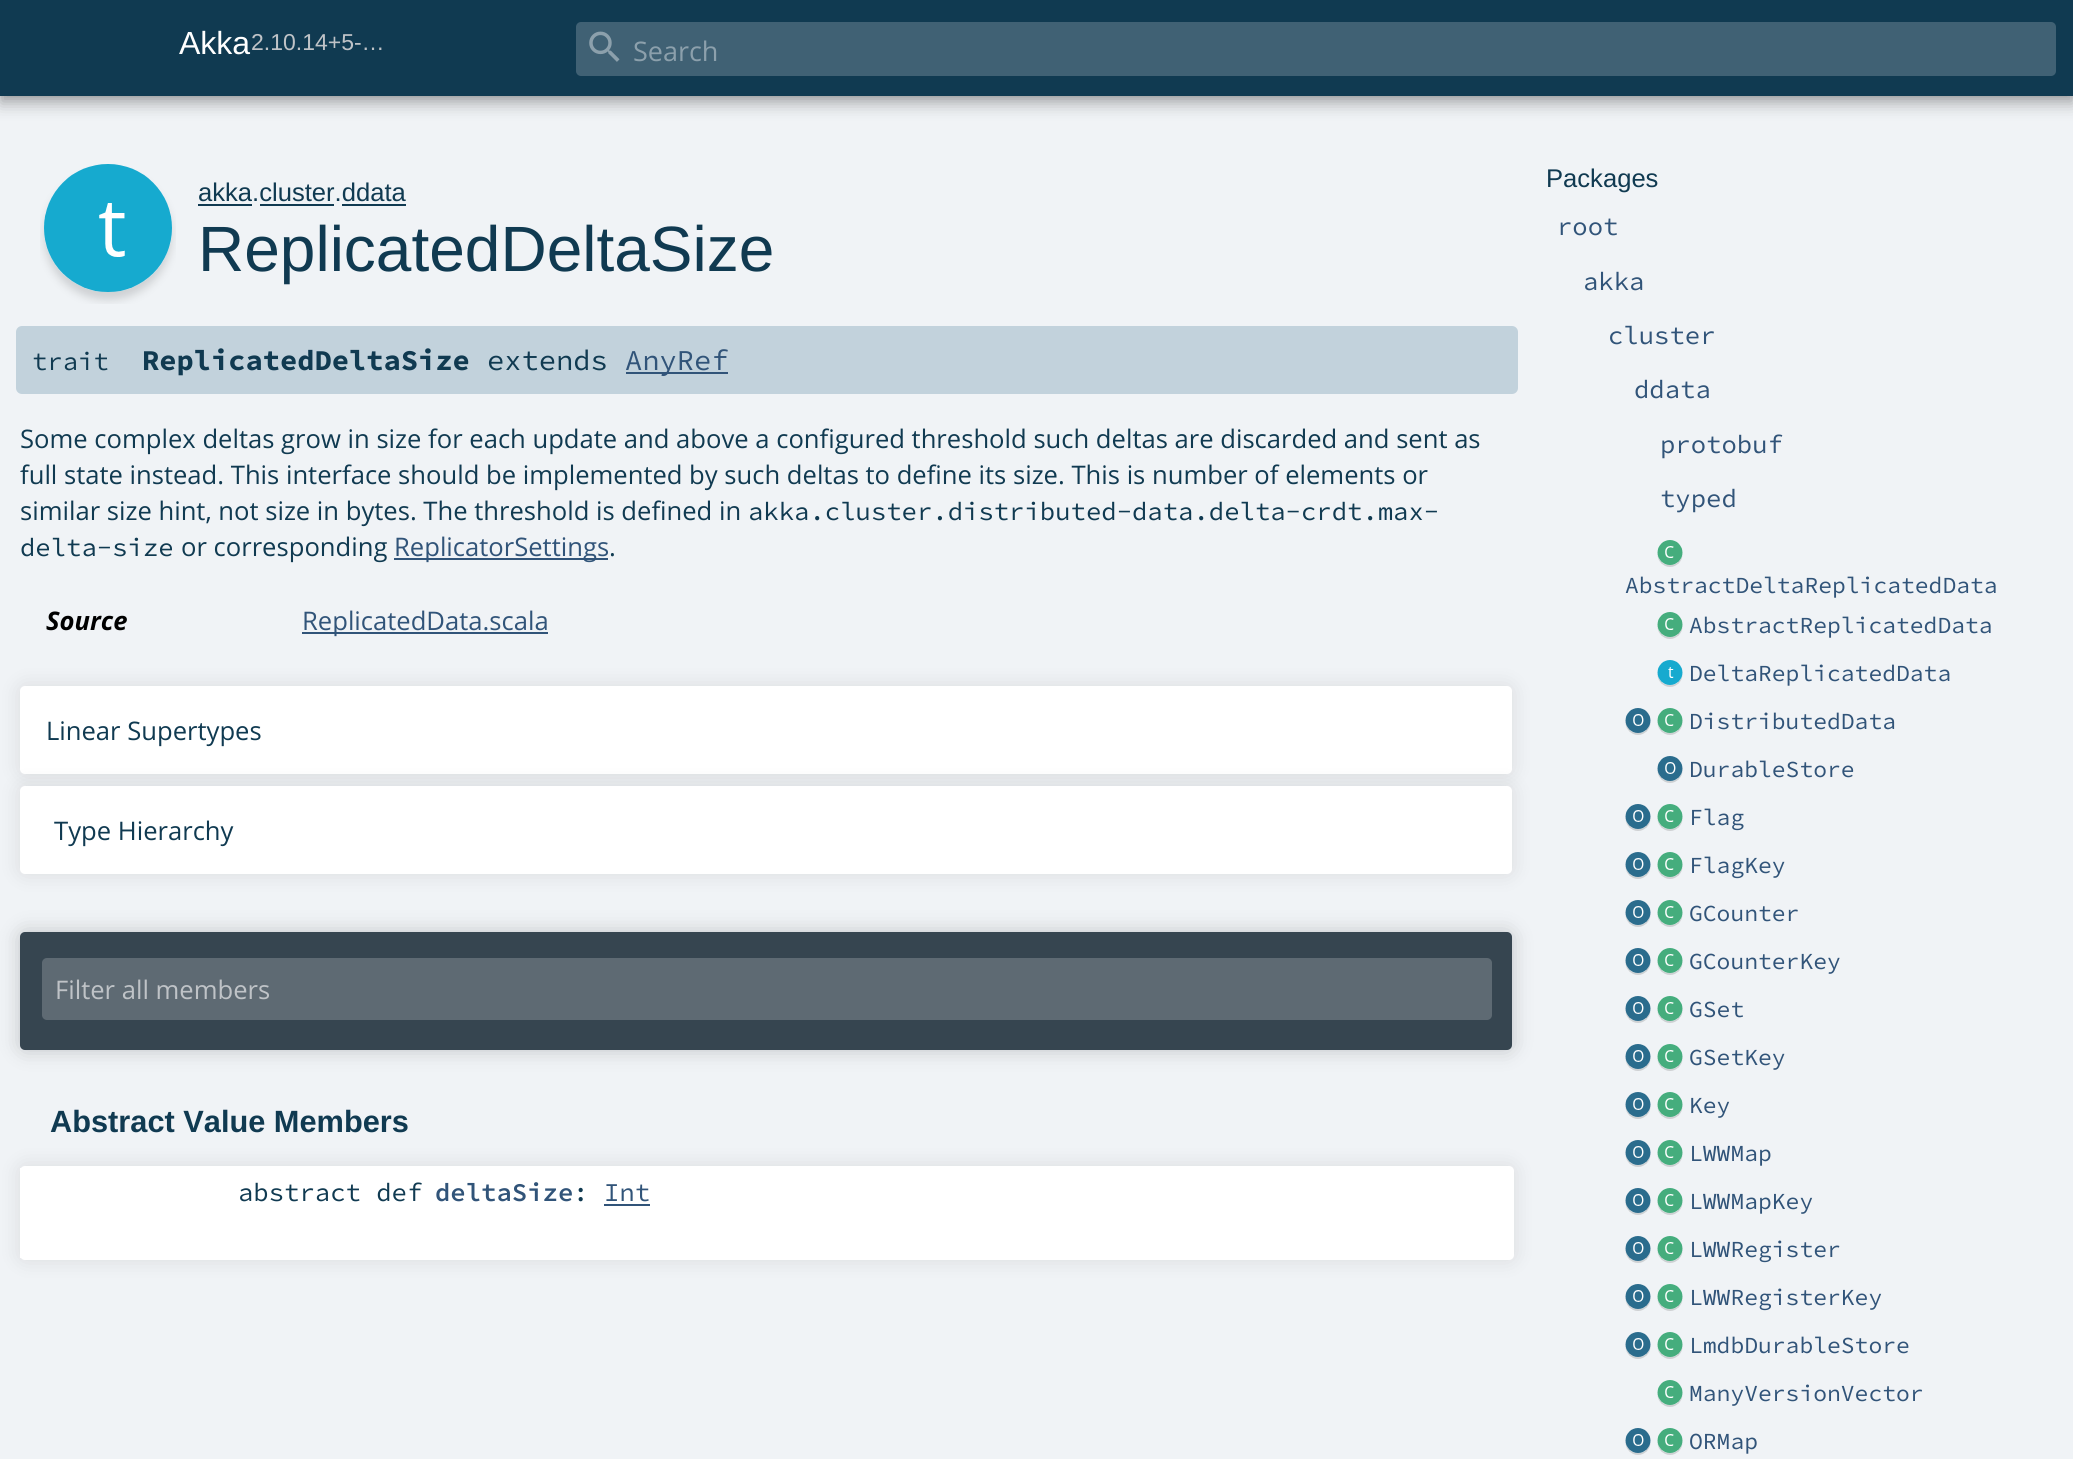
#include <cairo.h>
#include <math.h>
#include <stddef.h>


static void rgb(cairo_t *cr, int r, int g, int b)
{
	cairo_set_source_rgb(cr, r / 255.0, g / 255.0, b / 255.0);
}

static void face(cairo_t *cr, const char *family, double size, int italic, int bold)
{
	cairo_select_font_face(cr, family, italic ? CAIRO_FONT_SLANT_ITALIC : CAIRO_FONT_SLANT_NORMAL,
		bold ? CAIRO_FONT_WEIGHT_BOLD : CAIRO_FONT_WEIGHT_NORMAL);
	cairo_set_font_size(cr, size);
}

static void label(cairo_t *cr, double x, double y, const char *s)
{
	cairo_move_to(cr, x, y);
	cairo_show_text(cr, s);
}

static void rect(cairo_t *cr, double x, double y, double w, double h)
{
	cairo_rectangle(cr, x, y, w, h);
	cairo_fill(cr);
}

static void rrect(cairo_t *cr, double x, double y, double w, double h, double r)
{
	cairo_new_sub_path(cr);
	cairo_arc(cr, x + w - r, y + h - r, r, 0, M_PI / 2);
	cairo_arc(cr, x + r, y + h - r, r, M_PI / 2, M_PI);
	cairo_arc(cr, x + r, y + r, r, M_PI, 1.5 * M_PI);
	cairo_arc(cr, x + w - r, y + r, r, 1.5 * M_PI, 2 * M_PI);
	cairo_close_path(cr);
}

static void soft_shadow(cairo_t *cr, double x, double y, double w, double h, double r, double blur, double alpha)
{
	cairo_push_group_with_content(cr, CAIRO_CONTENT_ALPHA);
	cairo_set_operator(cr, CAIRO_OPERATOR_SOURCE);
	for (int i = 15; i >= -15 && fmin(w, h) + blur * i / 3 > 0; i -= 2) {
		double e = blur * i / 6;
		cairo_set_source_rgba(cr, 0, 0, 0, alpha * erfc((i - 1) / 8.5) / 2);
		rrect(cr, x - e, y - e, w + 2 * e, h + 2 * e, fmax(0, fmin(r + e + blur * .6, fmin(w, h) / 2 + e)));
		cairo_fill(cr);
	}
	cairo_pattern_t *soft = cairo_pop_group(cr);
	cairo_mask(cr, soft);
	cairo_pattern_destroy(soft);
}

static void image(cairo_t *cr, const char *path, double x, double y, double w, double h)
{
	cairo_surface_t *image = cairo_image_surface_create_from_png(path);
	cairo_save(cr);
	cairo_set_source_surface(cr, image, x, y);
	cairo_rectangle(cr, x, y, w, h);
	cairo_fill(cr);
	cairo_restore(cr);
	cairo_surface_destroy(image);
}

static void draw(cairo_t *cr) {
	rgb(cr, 240, 243, 246);
	cairo_paint(cr);
	rgb(cr, 0, 0, 0);
	soft_shadow(cr, 0, 8, 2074, 96, 0, 8, 0.28);
	soft_shadow(cr, 0, 0, 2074, 96, 0, 4, 0.18);
	rgb(cr, 16, 58, 81);
	rect(cr, 0, 0, 2073, 96);
	face(cr, "Liberation Sans", 32, 0, 0);
	rgb(cr, 255, 255, 255);
	label(cr, 179, 54, "Akka");
	face(cr, "Liberation Sans", 23, 0, 0);
	rgb(cr, 191, 195, 199);
	label(cr, 251, 50, "2.10.14+5-…");
	rgb(cr, 64, 97, 116);
	rrect(cr, 576, 22, 1480, 54, 5);
	cairo_fill(cr);
	image(cr, "image0.png", 589, 31, 31, 31);
	face(cr, "Open Sans", 27, 0, 0);
	rgb(cr, 140, 160, 172);
	label(cr, 633, 61, "Search");
	image(cr, "image1.png", 40, 164, 136, 140);
	face(cr, "Liberation Sans", 25.6, 0, 0);
	rgb(cr, 16, 58, 81);
	label(cr, 198, 201, "akka.cluster.ddata");
	rect(cr, 198, 204, 54, 2);
	rect(cr, 260, 204, 74, 2);
	rect(cr, 342, 204, 64, 2);
	face(cr, "Liberation Sans", 64, 0, 0);
	label(cr, 198, 271, "ReplicatedDeltaSize");
	rgb(cr, 194, 210, 220);
	rrect(cr, 16, 326, 1502, 68, 6);
	cairo_fill(cr);
	face(cr, "Source Code Pro", 25.6, 0, 0);
	rgb(cr, 16, 58, 81);
	label(cr, 32, 370, "trait");
	face(cr, "Source Code Pro", 28.75, 0, 1);
	label(cr, 142, 370, "ReplicatedDeltaSize");
	face(cr, "Source Code Pro", 28.75, 0, 0);
	label(cr, 487, 370, "extends");
	rgb(cr, 49, 84, 121);
	rect(cr, 626, 372, 102, 2);
	label(cr, 625, 370, "AnyRef");
	face(cr, "Open Sans", 25.6, 0, 0);
	rgb(cr, 16, 58, 81);
	label(cr, 20, 448, "Some complex deltas grow in size for each update and above a configured threshold such deltas are discarded and sent as");
	label(cr, 20, 484, "full state instead. This interface should be implemented by such deltas to define its size. This is number of elements or");
	label(cr, 20, 520, "similar size hint, not size in bytes. The threshold is defined in");
	face(cr, "Source Code Pro", 25.6, 0, 0);
	label(cr, 748, 520, "akka.cluster.distributed-data.delta-crdt.max-");
	label(cr, 20, 556, "delta-size");
	face(cr, "Open Sans", 25.6, 0, 0);
	label(cr, 181, 556, "or corresponding");
	rgb(cr, 49, 84, 121);
	rect(cr, 394, 558, 214, 2);
	label(cr, 394, 556, "ReplicatorSettings");
	rgb(cr, 16, 58, 81);
	label(cr, 609, 556, ".");
	face(cr, "Open Sans", 25.6, 1, 1);
	rgb(cr, 0, 0, 0);
	label(cr, 46, 630, "Source");
	rgb(cr, 49, 84, 121);
	rect(cr, 302, 632, 246, 2);
	face(cr, "Open Sans", 25.6, 0, 0);
	label(cr, 302, 630, "ReplicatedData.scala");
	rgb(cr, 0, 0, 0);
	soft_shadow(cr, 20, 686, 1492, 88, 5, 10, 0.1);
	rgb(cr, 255, 255, 255);
	rrect(cr, 20, 686, 1492, 88, 5);
	cairo_fill(cr);
	rgb(cr, 16, 58, 81);
	label(cr, 46, 740, "Linear Supertypes");
	rgb(cr, 0, 0, 0);
	soft_shadow(cr, 20, 786, 1492, 88, 5, 10, 0.1);
	rgb(cr, 255, 255, 255);
	rrect(cr, 20, 786, 1492, 88, 5);
	cairo_fill(cr);
	rgb(cr, 16, 58, 81);
	label(cr, 54, 840, "Type Hierarchy");
	rgb(cr, 0, 0, 0);
	soft_shadow(cr, 20, 932, 1492, 118, 5, 10, 0.2);
	rgb(cr, 54, 69, 80);
	rrect(cr, 20, 932, 1492, 118, 5);
	cairo_fill(cr);
	rgb(cr, 94, 106, 115);
	rrect(cr, 42, 958, 1450, 62, 5);
	cairo_fill(cr);
	rgb(cr, 191, 195, 199);
	label(cr, 55, 999, "Filter all members");
	face(cr, "Liberation Sans", 30.75, 0, 1);
	rgb(cr, 16, 58, 81);
	label(cr, 50, 1132, "Abstract Value Members");
	rgb(cr, 0, 0, 0);
	soft_shadow(cr, 20, 1166, 1494, 94, 5, 10, 0.1);
	rgb(cr, 255, 255, 255);
	rrect(cr, 20, 1166, 1494, 94, 5);
	cairo_fill(cr);
	rect(cr, 20, 1168, 1, 90);
	face(cr, "Source Code Pro", 25.6, 0, 0);
	rgb(cr, 16, 58, 81);
	label(cr, 238, 1201, "abstract def");
	face(cr, "Source Code Pro SemiBold", 25.6, 0, 0);
	rgb(cr, 49, 84, 121);
	label(cr, 435, 1201, "deltaSize");
	face(cr, "Source Code Pro", 25.6, 0, 0);
	rgb(cr, 16, 58, 81);
	label(cr, 573, 1201, ":");
	rgb(cr, 49, 84, 121);
	label(cr, 604, 1201, "Int");
	rect(cr, 604, 1204, 46, 2);
	face(cr, "Liberation Sans", 25.6, 0, 0);
	rgb(cr, 16, 58, 81);
	label(cr, 1546, 187, "Packages");
	face(cr, "Source Code Pro", 25.6, 0, 0);
	rgb(cr, 49, 84, 121);
	label(cr, 1557, 235, "root");
	label(cr, 1583, 290, "akka");
	label(cr, 1608, 344, "cluster");
	label(cr, 1634, 398, "ddata");
	label(cr, 1660, 453, "protobuf");
	label(cr, 1660, 507, "typed");
	image(cr, "image2.png", 1657, 540, 26, 27);
	face(cr, "Source Code Pro", 23, 0, 0);
	label(cr, 1625, 593, "AbstractDeltaReplicatedData");
	image(cr, "image2.png", 1657, 612, 26, 27);
	label(cr, 1689, 633, "AbstractReplicatedData");
	image(cr, "image3.png", 1657, 660, 26, 27);
	label(cr, 1689, 681, "DeltaReplicatedData");
	image(cr, "image4.png", 1625, 708, 26, 27);
	image(cr, "image2.png", 1657, 708, 26, 27);
	label(cr, 1689, 729, "DistributedData");
	image(cr, "image5.png", 1657, 756, 26, 27);
	label(cr, 1689, 777, "DurableStore");
	image(cr, "image4.png", 1625, 804, 26, 27);
	image(cr, "image2.png", 1657, 804, 26, 27);
	label(cr, 1689, 825, "Flag");
	image(cr, "image4.png", 1625, 852, 26, 27);
	image(cr, "image2.png", 1657, 852, 26, 27);
	label(cr, 1689, 873, "FlagKey");
	image(cr, "image4.png", 1625, 900, 26, 27);
	image(cr, "image2.png", 1657, 900, 26, 27);
	label(cr, 1689, 921, "GCounter");
	image(cr, "image4.png", 1625, 948, 26, 27);
	image(cr, "image2.png", 1657, 948, 26, 27);
	label(cr, 1689, 969, "GCounterKey");
	image(cr, "image6.png", 1625, 996, 26, 27);
	image(cr, "image7.png", 1657, 996, 26, 27);
	label(cr, 1689, 1017, "GSet");
	image(cr, "image4.png", 1625, 1044, 26, 27);
	image(cr, "image2.png", 1657, 1044, 26, 27);
	label(cr, 1689, 1065, "GSetKey");
	image(cr, "image4.png", 1625, 1092, 26, 27);
	image(cr, "image2.png", 1657, 1092, 26, 27);
	label(cr, 1689, 1113, "Key");
	image(cr, "image4.png", 1625, 1140, 26, 27);
	image(cr, "image2.png", 1657, 1140, 26, 27);
	label(cr, 1689, 1161, "LWWMap");
	image(cr, "image4.png", 1625, 1188, 26, 27);
	image(cr, "image2.png", 1657, 1188, 26, 27);
	label(cr, 1689, 1209, "LWWMapKey");
	image(cr, "image4.png", 1625, 1236, 26, 27);
	image(cr, "image2.png", 1657, 1236, 26, 27);
	label(cr, 1689, 1257, "LWWRegister");
	image(cr, "image4.png", 1625, 1284, 26, 27);
	image(cr, "image2.png", 1657, 1284, 26, 27);
	label(cr, 1689, 1305, "LWWRegisterKey");
	image(cr, "image4.png", 1625, 1332, 26, 27);
	image(cr, "image2.png", 1657, 1332, 26, 27);
	label(cr, 1689, 1353, "LmdbDurableStore");
	image(cr, "image2.png", 1657, 1380, 26, 27);
	label(cr, 1689, 1401, "ManyVersionVector");
	image(cr, "image4.png", 1625, 1428, 26, 27);
	image(cr, "image2.png", 1657, 1428, 26, 27);
	label(cr, 1689, 1449, "ORMap");
}

int main(void) {
	cairo_surface_t *surface = cairo_image_surface_create(CAIRO_FORMAT_RGB24, 2073, 1459);
	cairo_t *cr = cairo_create(surface);
	cairo_font_options_t *options = cairo_font_options_create();
	cairo_font_options_set_hint_metrics(options, CAIRO_HINT_METRICS_OFF);
	cairo_font_options_set_hint_style(options, CAIRO_HINT_STYLE_NONE);
	cairo_set_font_options(cr, options);
	cairo_set_miter_limit(cr, 4);
	draw(cr);
	cairo_surface_write_to_png(surface, "render.png");
	cairo_font_options_destroy(options);
	cairo_destroy(cr);
	cairo_surface_destroy(surface);
	return 0;
}
